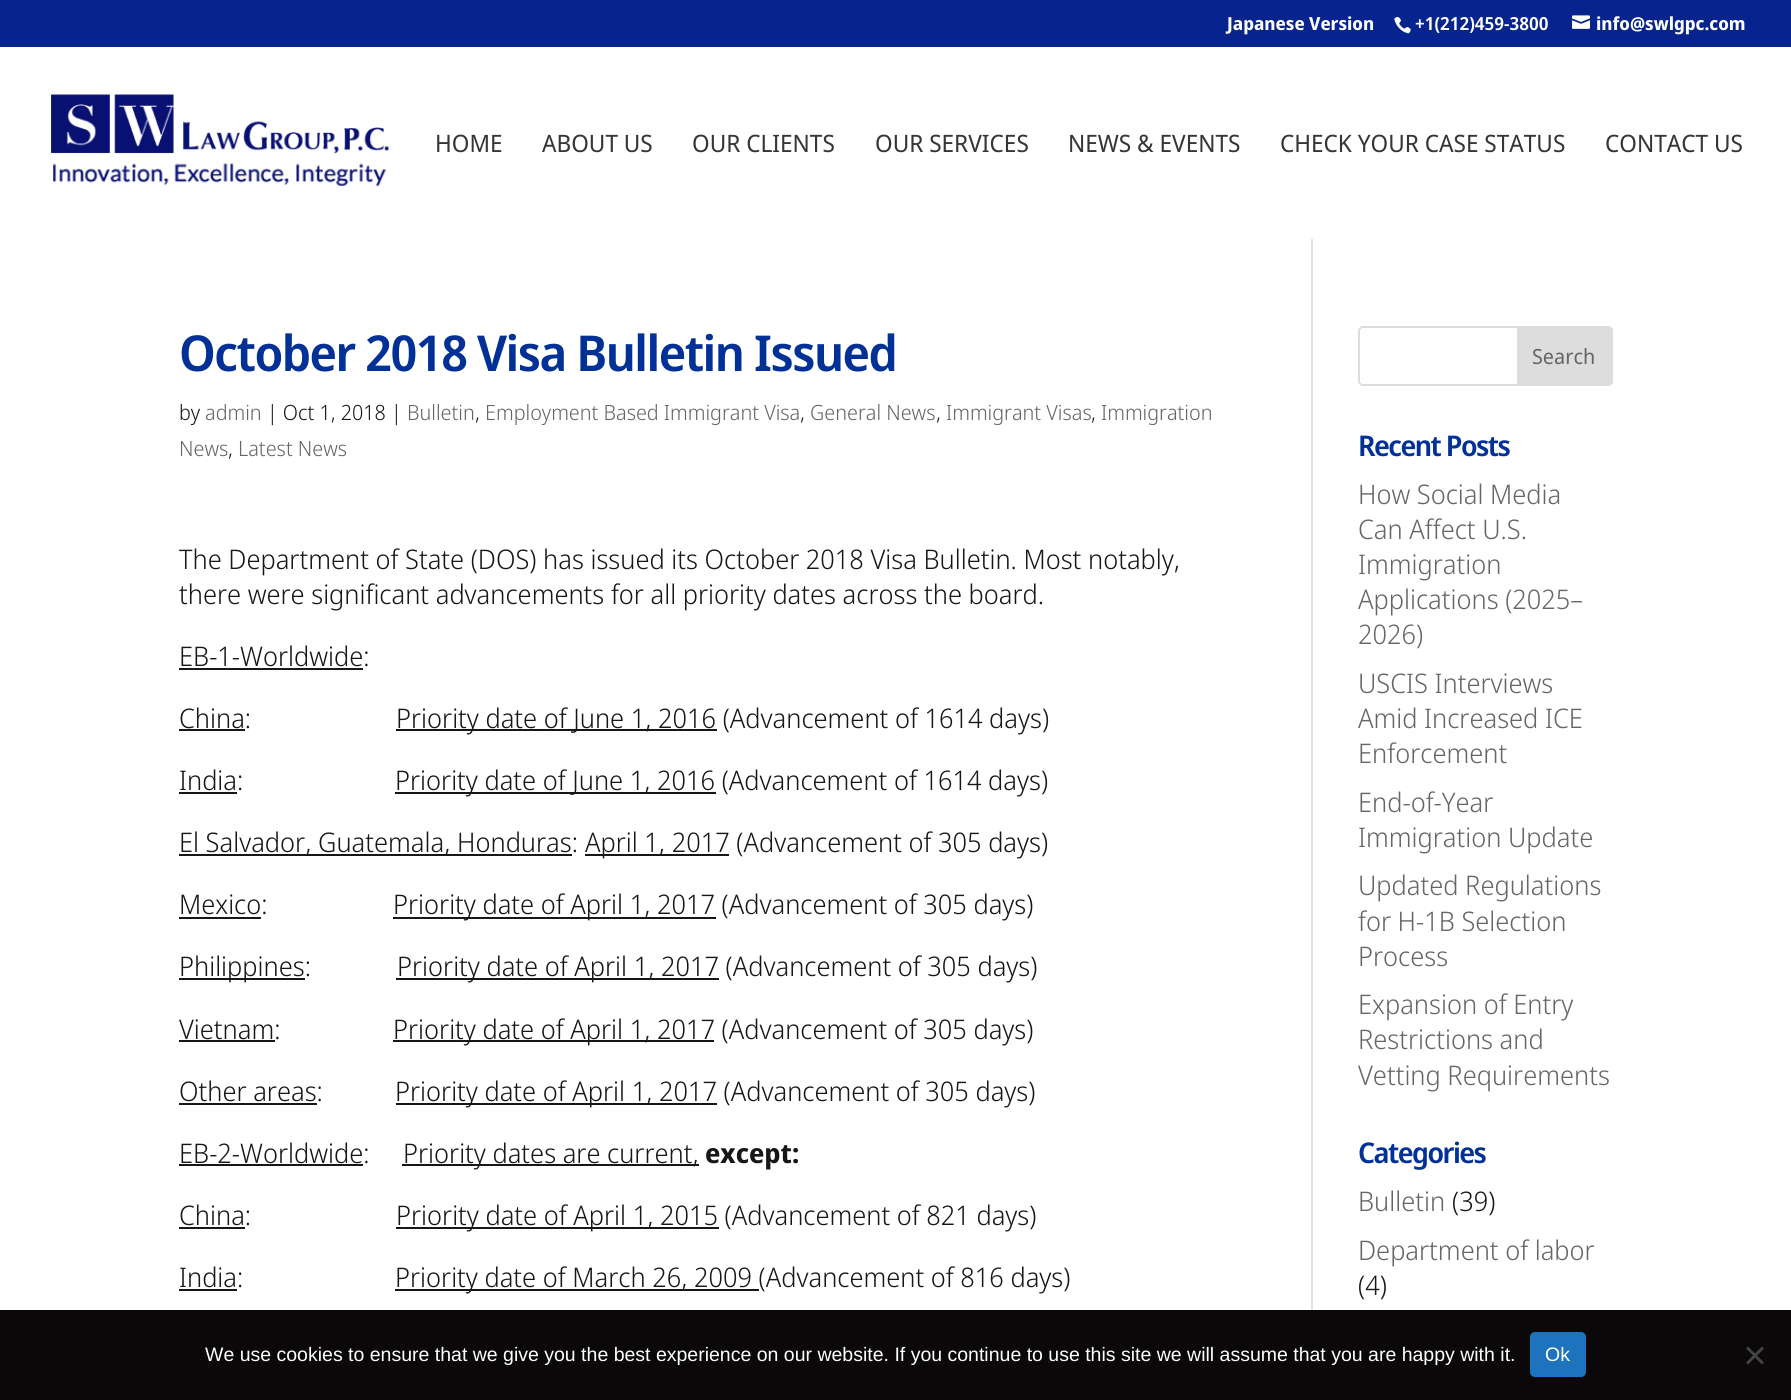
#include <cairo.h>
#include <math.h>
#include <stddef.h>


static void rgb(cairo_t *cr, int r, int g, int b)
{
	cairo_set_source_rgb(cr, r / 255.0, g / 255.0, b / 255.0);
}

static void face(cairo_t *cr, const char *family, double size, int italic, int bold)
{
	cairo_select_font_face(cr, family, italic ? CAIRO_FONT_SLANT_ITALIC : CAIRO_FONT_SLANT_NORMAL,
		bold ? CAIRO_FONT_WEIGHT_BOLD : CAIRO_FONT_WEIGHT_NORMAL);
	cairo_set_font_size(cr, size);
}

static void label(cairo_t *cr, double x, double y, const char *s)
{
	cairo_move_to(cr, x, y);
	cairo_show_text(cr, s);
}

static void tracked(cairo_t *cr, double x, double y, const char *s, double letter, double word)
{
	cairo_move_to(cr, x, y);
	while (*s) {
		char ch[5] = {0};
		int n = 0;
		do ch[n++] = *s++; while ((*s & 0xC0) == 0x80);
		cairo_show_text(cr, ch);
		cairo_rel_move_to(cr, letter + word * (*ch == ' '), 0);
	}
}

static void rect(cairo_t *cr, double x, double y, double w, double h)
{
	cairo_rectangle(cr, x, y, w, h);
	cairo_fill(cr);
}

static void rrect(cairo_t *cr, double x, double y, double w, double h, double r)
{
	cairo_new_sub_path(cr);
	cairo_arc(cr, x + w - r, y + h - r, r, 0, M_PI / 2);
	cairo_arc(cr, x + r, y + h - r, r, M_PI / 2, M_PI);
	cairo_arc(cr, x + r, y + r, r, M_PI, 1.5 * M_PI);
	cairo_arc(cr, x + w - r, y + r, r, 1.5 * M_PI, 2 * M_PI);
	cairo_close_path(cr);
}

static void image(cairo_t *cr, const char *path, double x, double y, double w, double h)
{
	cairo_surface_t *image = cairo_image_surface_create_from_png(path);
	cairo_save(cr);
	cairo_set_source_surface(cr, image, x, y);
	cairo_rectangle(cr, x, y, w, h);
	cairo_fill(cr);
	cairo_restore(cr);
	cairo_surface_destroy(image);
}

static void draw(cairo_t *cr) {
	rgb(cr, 7, 36, 142);
	cairo_paint(cr);
	face(cr, "Noto Sans Display", 18, 0, 1);
	rgb(cr, 255, 255, 255);
	label(cr, 1227, 30, "Japanese Version");
	image(cr, "image0.png", 1394, 16, 17, 18);
	face(cr, "Noto Sans Display SemiBold", 18, 0, 0);
	label(cr, 1415, 30, "+1(212)459-3800");
	image(cr, "image1.png", 1572, 15, 18, 14);
	face(cr, "Noto Sans Display", 18, 0, 1);
	label(cr, 1596, 30, "info@swlgpc.com");
	rect(cr, 0, 47, 1791, 1263);
	image(cr, "image2.png", 51, 94, 338, 92);
	face(cr, "Noto Sans Display", 24, 0, 0);
	rgb(cr, 54, 54, 54);
	label(cr, 435, 152, "HOME");
	label(cr, 542, 152, "ABOUT US");
	label(cr, 692, 152, "OUR CLIENTS");
	label(cr, 875, 152, "OUR SERVICES");
	label(cr, 1068, 152, "NEWS & EVENTS");
	label(cr, 1280, 152, "CHECK YOUR CASE STATUS");
	label(cr, 1605, 152, "CONTACT US");
	rgb(cr, 226, 226, 226);
	rect(cr, 1311, 239, 2, 1071);
	face(cr, "Noto Sans Display SemiBold", 49.5, 0, 0);
	rgb(cr, 1, 48, 150);
	tracked(cr, 179, 371, "October 2018 Visa Bulletin Issued", -1.5, 0);
	face(cr, "Noto Sans Display Light", 21, 0, 0);
	rgb(cr, 23, 23, 23);
	label(cr, 179, 420, "by");
	rgb(cr, 102, 102, 102);
	label(cr, 205, 420, "admin");
	rgb(cr, 23, 23, 23);
	label(cr, 267, 420, "| Oct 1, 2018 |");
	rgb(cr, 102, 102, 102);
	label(cr, 407, 420, "Bulletin");
	rgb(cr, 23, 23, 23);
	label(cr, 475, 420, ",");
	rgb(cr, 102, 102, 102);
	label(cr, 485, 420, "Employment Based Immigrant Visa");
	rgb(cr, 23, 23, 23);
	label(cr, 800, 420, ",");
	rgb(cr, 102, 102, 102);
	label(cr, 810, 420, "General News");
	rgb(cr, 23, 23, 23);
	label(cr, 936, 420, ",");
	rgb(cr, 102, 102, 102);
	label(cr, 946, 420, "Immigrant Visas");
	rgb(cr, 23, 23, 23);
	label(cr, 1091, 420, ",");
	rgb(cr, 102, 102, 102);
	label(cr, 1101, 420, "Immigration");
	label(cr, 179, 456, "News");
	rgb(cr, 23, 23, 23);
	label(cr, 228, 456, ",");
	rgb(cr, 102, 102, 102);
	label(cr, 238, 456, "Latest News");
	face(cr, "Noto Sans Display Light", 27, 0, 0);
	rgb(cr, 23, 23, 23);
	label(cr, 179, 569, "The Department of State (DOS) has issued its October 2018 Visa Bulletin. Most notably,");
	label(cr, 179, 604, "there were significant advancements for all priority dates across the board.");
	label(cr, 179, 666, "EB-1-Worldwide:");
	rect(cr, 179, 668, 184, 2);
	label(cr, 179, 728, "China:");
	rect(cr, 179, 729, 66, 2);
	rect(cr, 396, 729, 321, 2);
	label(cr, 396, 728, "Priority date of June 1, 2016 (Advancement of 1614 days)");
	label(cr, 179, 790, "India:");
	rect(cr, 179, 792, 58, 2);
	rect(cr, 395, 792, 321, 2);
	label(cr, 395, 790, "Priority date of June 1, 2016 (Advancement of 1614 days)");
	rect(cr, 179, 854, 393, 2);
	label(cr, 179, 852, "El Salvador, Guatemala, Honduras:");
	rect(cr, 585, 854, 144, 2);
	label(cr, 585, 852, "April 1, 2017 (Advancement of 305 days)");
	label(cr, 179, 914, "Mexico:");
	rect(cr, 179, 917, 82, 2);
	rect(cr, 393, 917, 323, 2);
	label(cr, 393, 914, "Priority date of April 1, 2017 (Advancement of 305 days)");
	rect(cr, 179, 978, 126, 2);
	label(cr, 179, 976, "Philippines:");
	rect(cr, 396, 978, 323, 2);
	label(cr, 397, 976, "Priority date of April 1, 2017 (Advancement of 305 days)");
	label(cr, 179, 1039, "Vietnam:");
	rect(cr, 179, 1040, 96, 2);
	rect(cr, 393, 1040, 321, 2);
	label(cr, 393, 1039, "Priority date of April 1, 2017 (Advancement of 305 days)");
	label(cr, 179, 1101, "Other areas:");
	rect(cr, 179, 1103, 138, 2);
	rect(cr, 396, 1103, 321, 2);
	label(cr, 395, 1101, "Priority date of April 1, 2017 (Advancement of 305 days)");
	label(cr, 179, 1163, "EB-2-Worldwide:");
	rect(cr, 179, 1164, 184, 2);
	rect(cr, 402, 1164, 297, 2);
	label(cr, 403, 1163, "Priority dates are current,");
	face(cr, "Noto Sans Display", 27, 0, 1);
	label(cr, 705, 1163, "except:");
	face(cr, "Noto Sans Display Light", 27, 0, 0);
	label(cr, 179, 1225, "China:");
	rect(cr, 179, 1227, 66, 2);
	rect(cr, 396, 1227, 323, 2);
	label(cr, 396, 1225, "Priority date of April 1, 2015 (Advancement of 821 days)");
	label(cr, 179, 1287, "India:");
	rect(cr, 179, 1289, 58, 2);
	rect(cr, 395, 1289, 364, 2);
	label(cr, 395, 1287, "Priority date of March 26, 2009 (Advancement of 816 days)");
	rrect(cr, 1359, 327, 253, 58, 4);
	rgb(cr, 221, 221, 221);
	cairo_stroke(cr);
	cairo_new_path(cr);
	cairo_move_to(cr, 1518, 327);
	cairo_line_to(cr, 1608, 327);
	cairo_curve_to(cr, 1610, 327, 1612, 329, 1612, 331);
	cairo_line_to(cr, 1612, 381);
	cairo_curve_to(cr, 1612, 383, 1610, 385, 1608, 385);
	cairo_line_to(cr, 1518, 385);
	cairo_close_path(cr);
	cairo_fill_preserve(cr);
	cairo_stroke(cr);
	face(cr, "Noto Sans Display", 21, 0, 0);
	rgb(cr, 102, 102, 102);
	label(cr, 1532, 364, "Search");
	face(cr, "Noto Sans Display SemiBold", 28.5, 0, 0);
	rgb(cr, 1, 48, 150);
	tracked(cr, 1358, 456, "Recent Posts", -1.5, 0);
	face(cr, "Noto Sans Display Light", 27, 0, 0);
	rgb(cr, 102, 102, 102);
	label(cr, 1358, 504, "How Social Media");
	label(cr, 1358, 539, "Can Affect U.S.");
	label(cr, 1358, 574, "Immigration");
	label(cr, 1358, 609, "Applications (2025–");
	label(cr, 1358, 644, "2026)");
	label(cr, 1358, 693, "USCIS Interviews");
	label(cr, 1358, 728, "Amid Increased ICE");
	label(cr, 1358, 763, "Enforcement");
	label(cr, 1358, 812, "End-of-Year");
	label(cr, 1358, 847, "Immigration Update");
	label(cr, 1358, 895, "Updated Regulations");
	label(cr, 1358, 931, "for H-1B Selection");
	label(cr, 1358, 966, "Process");
	label(cr, 1358, 1014, "Expansion of Entry");
	label(cr, 1358, 1049, "Restrictions and");
	label(cr, 1358, 1085, "Vetting Requirements");
	face(cr, "Noto Sans Display SemiBold", 28.5, 0, 0);
	rgb(cr, 1, 48, 150);
	tracked(cr, 1358, 1163, "Categories", -1.5, 0);
	face(cr, "Noto Sans Display Light", 27, 0, 0);
	rgb(cr, 102, 102, 102);
	label(cr, 1358, 1211, "Bulletin");
	rgb(cr, 23, 23, 23);
	label(cr, 1452, 1211, "(39)");
	rgb(cr, 102, 102, 102);
	label(cr, 1358, 1260, "Department of labor");
	rgb(cr, 23, 23, 23);
	label(cr, 1358, 1295, "(4)");
	rgb(cr, 10, 8, 8);
	rect(cr, 0, 1310, 1791, 90);
	face(cr, "Liberation Sans", 19.5, 0, 0);
	rgb(cr, 255, 255, 255);
	label(cr, 205, 1361, "We use cookies to ensure that we give you the best experience on our website. If you continue to use this site we will assume that you are happy with it.");
	rgb(cr, 30, 115, 190);
	rrect(cr, 1530, 1332, 56, 45, 5);
	cairo_fill(cr);
	rgb(cr, 255, 255, 255);
	label(cr, 1545, 1361, "Ok");
	rgb(cr, 69, 68, 68);
	cairo_new_path(cr);
	cairo_move_to(cr, 1762, 1346.5);
	cairo_line_to(cr, 1764, 1348.5);
	cairo_line_to(cr, 1748, 1364.5);
	cairo_line_to(cr, 1746, 1362.5);
	cairo_close_path(cr);
	cairo_fill(cr);
	cairo_new_path(cr);
	cairo_move_to(cr, 1746, 1348.5);
	cairo_line_to(cr, 1748, 1346.5);
	cairo_line_to(cr, 1764, 1362.5);
	cairo_line_to(cr, 1762, 1364.5);
	cairo_close_path(cr);
	cairo_fill(cr);
}

int main(void) {
	cairo_surface_t *surface = cairo_image_surface_create(CAIRO_FORMAT_RGB24, 1791, 1400);
	cairo_t *cr = cairo_create(surface);
	cairo_font_options_t *options = cairo_font_options_create();
	cairo_font_options_set_hint_metrics(options, CAIRO_HINT_METRICS_OFF);
	cairo_font_options_set_hint_style(options, CAIRO_HINT_STYLE_NONE);
	cairo_set_font_options(cr, options);
	cairo_set_miter_limit(cr, 4);
	draw(cr);
	cairo_surface_write_to_png(surface, "render.png");
	cairo_font_options_destroy(options);
	cairo_destroy(cr);
	cairo_surface_destroy(surface);
	return 0;
}
